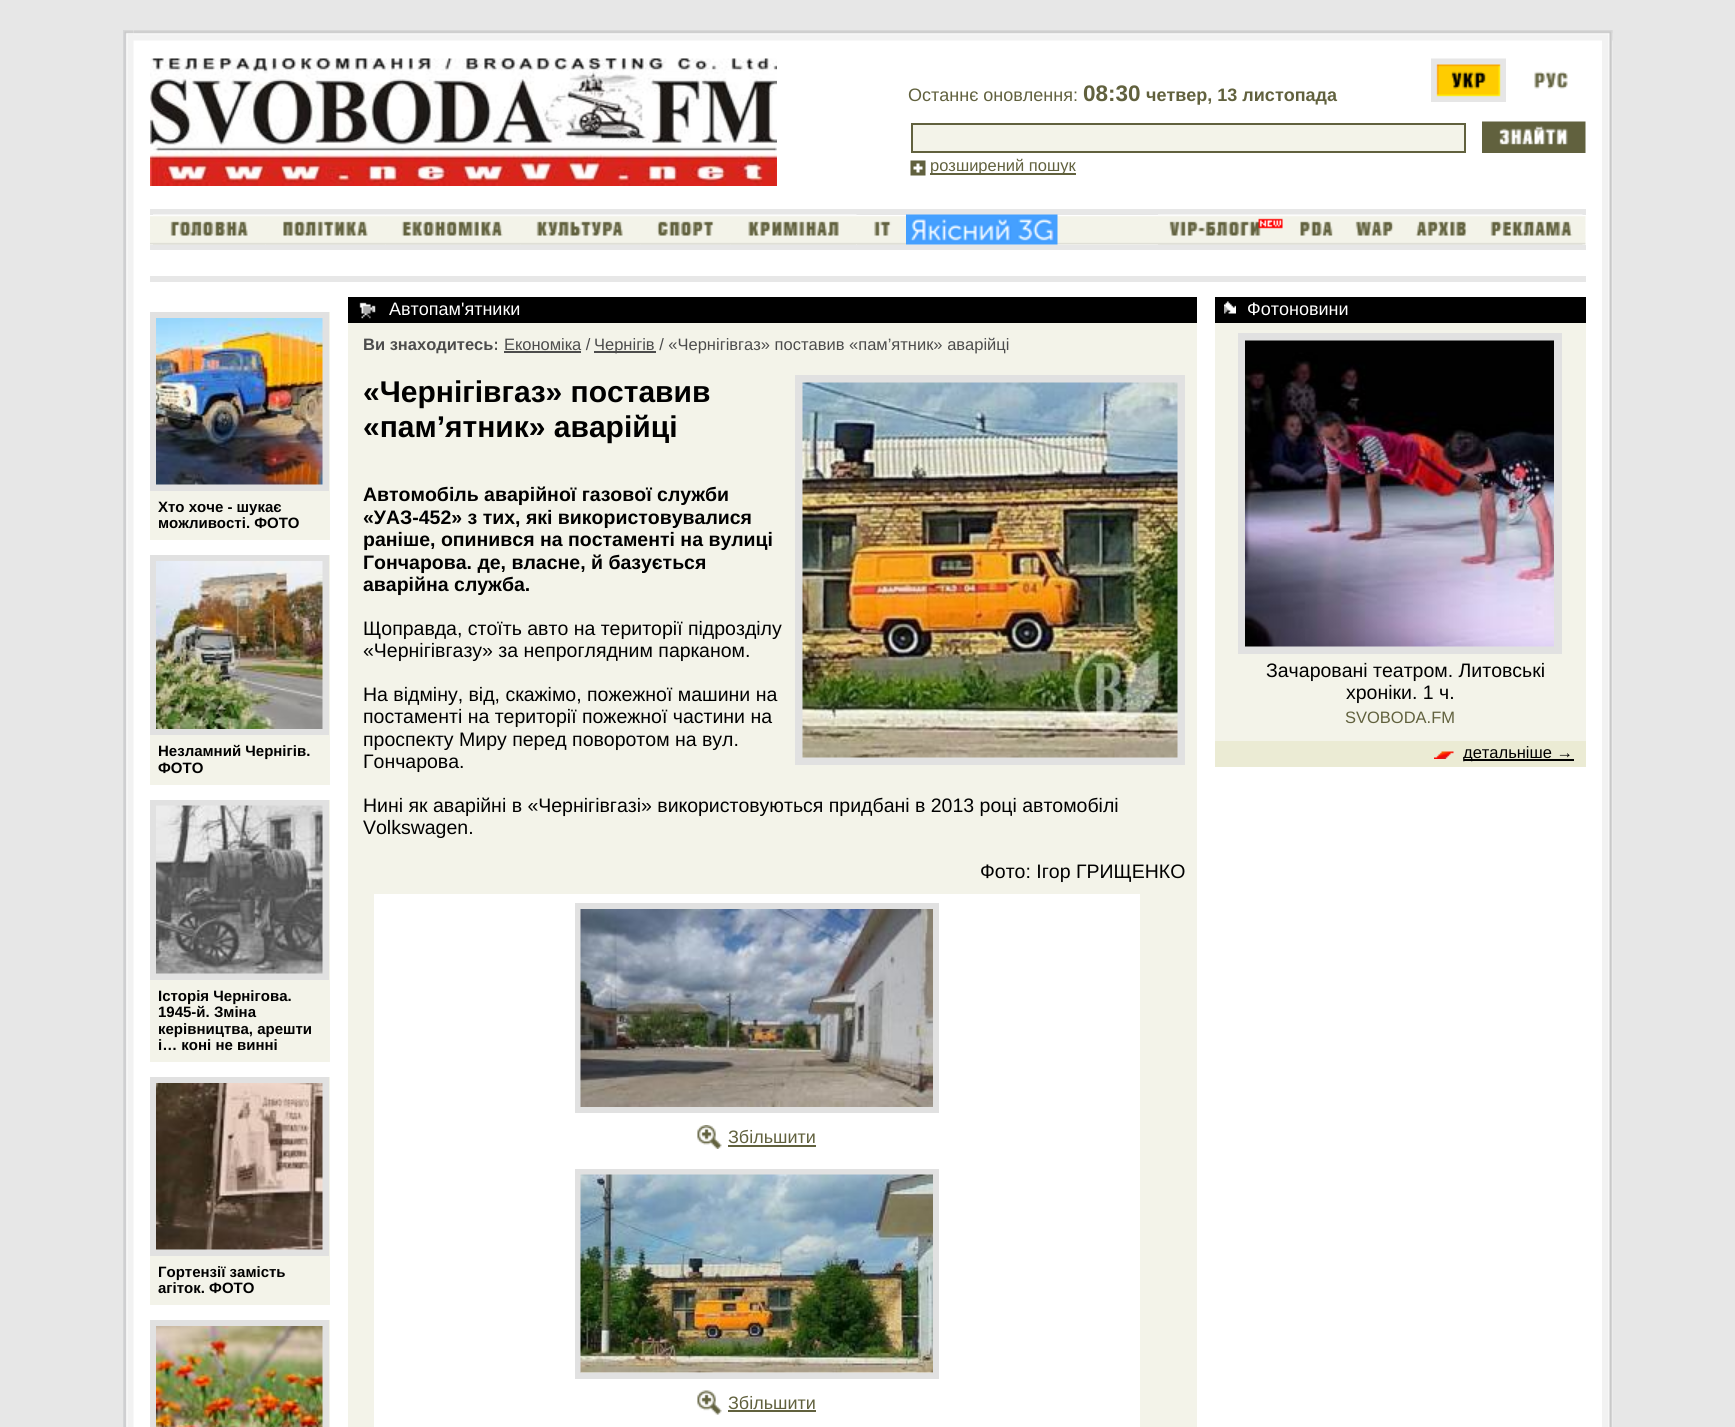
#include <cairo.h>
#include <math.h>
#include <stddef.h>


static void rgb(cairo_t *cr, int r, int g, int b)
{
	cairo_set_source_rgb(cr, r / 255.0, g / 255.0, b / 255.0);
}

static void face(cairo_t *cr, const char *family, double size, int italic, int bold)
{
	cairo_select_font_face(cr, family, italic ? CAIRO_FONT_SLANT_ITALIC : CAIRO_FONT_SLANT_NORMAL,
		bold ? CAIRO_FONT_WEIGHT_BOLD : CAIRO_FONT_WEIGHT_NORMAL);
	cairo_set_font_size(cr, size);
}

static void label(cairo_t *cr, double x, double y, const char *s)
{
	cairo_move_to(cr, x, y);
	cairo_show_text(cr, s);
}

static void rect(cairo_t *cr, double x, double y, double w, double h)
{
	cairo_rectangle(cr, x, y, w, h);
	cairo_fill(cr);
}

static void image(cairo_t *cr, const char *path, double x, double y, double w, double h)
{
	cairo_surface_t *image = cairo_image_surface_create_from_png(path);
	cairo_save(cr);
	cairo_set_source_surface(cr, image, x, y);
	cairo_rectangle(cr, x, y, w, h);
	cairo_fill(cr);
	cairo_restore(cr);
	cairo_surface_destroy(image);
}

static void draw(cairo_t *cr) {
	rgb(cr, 231, 231, 231);
	cairo_paint(cr);
	rgb(cr, 255, 255, 255);
	rect(cr, 133, 30, 1480, 1397);
	image(cr, "image0.png", 133, 30, 1480, 11);
	image(cr, "image1.png", 1602, 30, 11, 1397);
	image(cr, "image2.png", 123, 30, 11, 1397);
	image(cr, "image3.png", 124, 30, 10, 4);
	image(cr, "image4.png", 1602, 30, 11, 11);
	rgb(cr, 231, 231, 231);
	rect(cr, 150, 276, 1436, 6);
	image(cr, "image5.png", 150, 58, 627, 128);
	face(cr, "Liberation Sans", 18, 0, 0);
	rgb(cr, 97, 97, 62);
	label(cr, 908, 101, "Останнє оновлення:");
	face(cr, "Liberation Sans", 22.5, 0, 1);
	label(cr, 1083, 101, "08:30");
	face(cr, "Liberation Sans", 18, 0, 1);
	label(cr, 1146, 101, "четвер, 13 листопада");
	image(cr, "image6.png", 1431, 58, 75, 44);
	image(cr, "image7.png", 1534, 71, 34, 18);
	rgb(cr, 243, 243, 233);
	cairo_rectangle(cr, 912, 124, 553, 28);
	cairo_fill_preserve(cr);
	rgb(cr, 97, 97, 62);
	cairo_stroke(cr);
	image(cr, "image8.png", 1482, 121, 104, 32);
	image(cr, "image9.png", 910, 160, 16, 16);
	rect(cr, 930, 173, 146, 2);
	face(cr, "Liberation Sans", 16.5, 0, 0);
	label(cr, 930, 171, "розширений пошук");
	image(cr, "image10.png", 150, 216, 1436, 29);
	rgb(cr, 231, 231, 231);
	rect(cr, 150, 209, 1436, 6);
	rect(cr, 150, 245, 1436, 5);
	image(cr, "image11.png", 153, 214, 113, 31);
	image(cr, "image12.png", 265, 214, 121, 31);
	image(cr, "image13.png", 385, 214, 136, 31);
	image(cr, "image14.png", 520, 214, 121, 31);
	image(cr, "image15.png", 640, 214, 91, 31);
	image(cr, "image16.png", 730, 214, 127, 31);
	image(cr, "image17.png", 857, 221, 49, 24);
	image(cr, "image18.png", 906, 214, 152, 31);
	image(cr, "image19.png", 1158, 214, 129, 31);
	image(cr, "image20.png", 1287, 214, 57, 31);
	image(cr, "image21.png", 1344, 214, 60, 31);
	image(cr, "image22.png", 1404, 214, 75, 31);
	image(cr, "image23.png", 1479, 214, 104, 31);
	rgb(cr, 243, 243, 233);
	rect(cr, 150, 312, 180, 228);
	rgb(cr, 225, 225, 225);
	rect(cr, 150, 312, 179, 179);
	image(cr, "image24.png", 156, 318, 167, 167);
	face(cr, "Liberation Sans", 15, 0, 1);
	rgb(cr, 0, 0, 0);
	label(cr, 158, 512, "Хто хоче - шукає");
	label(cr, 158, 528, "можливості. ФОТО");
	rgb(cr, 243, 243, 233);
	rect(cr, 150, 555, 180, 230);
	rgb(cr, 225, 225, 225);
	rect(cr, 150, 555, 179, 180);
	image(cr, "image25.png", 156, 561, 167, 168);
	rgb(cr, 0, 0, 0);
	label(cr, 158, 756, "Незламний Чернігів.");
	label(cr, 158, 773, "ФОТО");
	rgb(cr, 243, 243, 233);
	rect(cr, 150, 800, 180, 262);
	rgb(cr, 225, 225, 225);
	rect(cr, 150, 800, 179, 180);
	image(cr, "image26.png", 156, 805, 167, 169);
	rgb(cr, 0, 0, 0);
	label(cr, 158, 1001, "Історія Чернігова.");
	label(cr, 158, 1017, "1945-й. Зміна");
	label(cr, 158, 1034, "керівництва, арешти");
	label(cr, 158, 1050, "і… коні не винні");
	rgb(cr, 243, 243, 233);
	rect(cr, 150, 1077, 180, 228);
	rgb(cr, 225, 225, 225);
	rect(cr, 150, 1077, 179, 179);
	image(cr, "image27.png", 156, 1083, 167, 167);
	rgb(cr, 0, 0, 0);
	label(cr, 158, 1277, "Гортензії замість");
	label(cr, 158, 1293, "агіток. ФОТО");
	rgb(cr, 243, 243, 233);
	rect(cr, 329, 1320, 1, 107);
	rgb(cr, 225, 225, 225);
	rect(cr, 150, 1320, 179, 107);
	image(cr, "image28.png", 156, 1326, 167, 101);
	rgb(cr, 243, 243, 233);
	rect(cr, 348, 323, 849, 1104);
	rgb(cr, 0, 0, 0);
	rect(cr, 348, 297, 849, 26);
	image(cr, "image29.png", 359, 302, 17, 17);
	face(cr, "Liberation Sans", 18, 0, 0);
	rgb(cr, 255, 255, 255);
	label(cr, 389, 315, "Автопам'ятники");
	face(cr, "Liberation Sans", 16.5, 0, 1);
	rgb(cr, 76, 76, 76);
	label(cr, 363, 350, "Ви знаходитесь:");
	face(cr, "Liberation Sans", 16.5, 0, 0);
	label(cr, 504, 350, "Економіка /");
	rect(cr, 504, 351, 77, 2);
	rect(cr, 594, 351, 62, 2);
	label(cr, 594, 350, "Чернігів / «Чернігівгаз» поставив «пам’ятник» аварійці");
	face(cr, "Liberation Sans", 30, 0, 1);
	rgb(cr, 0, 0, 0);
	label(cr, 363, 402, "«Чернігівгаз» поставив");
	label(cr, 363, 437, "«пам’ятник» аварійці");
	rgb(cr, 225, 225, 225);
	rect(cr, 795, 375, 390, 390);
	image(cr, "image30.png", 802, 382, 376, 376);
	face(cr, "Liberation Sans", 19.5, 0, 1);
	rgb(cr, 0, 0, 0);
	label(cr, 363, 501, "Автомобіль аварійної газової служби");
	label(cr, 363, 524, "«УАЗ-452» з тих, які використовувалися");
	label(cr, 363, 546, "раніше, опинився на постаменті на вулиці");
	label(cr, 363, 569, "Гончарова. де, власне, й базується");
	label(cr, 363, 591, "аварійна служба.");
	face(cr, "Liberation Sans", 19.5, 0, 0);
	label(cr, 363, 635, "Щоправда, стоїть авто на території підрозділу");
	label(cr, 363, 657, "«Чернігівгазу» за непроглядним парканом.");
	label(cr, 363, 701, "На відміну, від, скажімо, пожежної машини на");
	label(cr, 363, 723, "постаменті на території пожежної частини на");
	label(cr, 363, 746, "проспекту Миру перед поворотом на вул.");
	label(cr, 363, 768, "Гончарова.");
	label(cr, 363, 812, "Нині як аварійні в «Чернігівгазі» використовуються придбані в 2013 році автомобілі");
	label(cr, 363, 834, "Volkswagen.");
	label(cr, 980, 878, "Фото: Ігор ГРИЩЕНКО");
	rgb(cr, 255, 255, 255);
	rect(cr, 374, 894, 766, 533);
	cairo_rectangle(cr, 578, 906, 358, 204);
	rgb(cr, 225, 225, 225);
	cairo_set_line_width(cr, 6);
	cairo_stroke(cr);
	image(cr, "image31.png", 580, 909, 353, 198);
	image(cr, "image32.png", 697, 1125, 25, 24);
	face(cr, "Liberation Sans", 18, 0, 0);
	rgb(cr, 97, 97, 62);
	label(cr, 728, 1143, "Збільшити");
	rect(cr, 728, 1145, 88, 2);
	cairo_rectangle(cr, 578, 1172, 358, 204);
	rgb(cr, 225, 225, 225);
	cairo_stroke(cr);
	image(cr, "image33.png", 580, 1174, 353, 199);
	image(cr, "image34.png", 697, 1390, 25, 25);
	rgb(cr, 97, 97, 62);
	label(cr, 728, 1409, "Збільшити");
	rect(cr, 728, 1410, 88, 2);
	rgb(cr, 243, 243, 233);
	rect(cr, 1215, 323, 371, 418);
	rgb(cr, 0, 0, 0);
	rect(cr, 1215, 297, 371, 26);
	image(cr, "image35.png", 1224, 301, 12, 13);
	rgb(cr, 255, 255, 255);
	label(cr, 1247, 315, "Фотоновини");
	rgb(cr, 225, 225, 225);
	rect(cr, 1238, 333, 324, 321);
	image(cr, "image36.png", 1245, 340, 309, 307);
	face(cr, "Liberation Sans", 19.5, 0, 0);
	rgb(cr, 0, 0, 0);
	label(cr, 1266, 677, "Зачаровані театром. Литовські");
	label(cr, 1346, 699, "хроніки. 1 ч.");
	face(cr, "Liberation Sans", 16.5, 0, 0);
	rgb(cr, 97, 97, 62);
	label(cr, 1345, 723, "SVOBODA.FM");
	rgb(cr, 235, 235, 212);
	rect(cr, 1215, 741, 371, 26);
	image(cr, "image37.png", 1434, 751, 20, 8);
	rgb(cr, 0, 0, 0);
	rect(cr, 1464, 759, 110, 2);
	label(cr, 1463, 758, "детальніше →");
}

int main(void) {
	cairo_surface_t *surface = cairo_image_surface_create(CAIRO_FORMAT_RGB24, 1735, 1427);
	cairo_t *cr = cairo_create(surface);
	cairo_font_options_t *options = cairo_font_options_create();
	cairo_font_options_set_hint_metrics(options, CAIRO_HINT_METRICS_OFF);
	cairo_font_options_set_hint_style(options, CAIRO_HINT_STYLE_NONE);
	cairo_set_font_options(cr, options);
	cairo_set_miter_limit(cr, 4);
	draw(cr);
	cairo_surface_write_to_png(surface, "render.png");
	cairo_font_options_destroy(options);
	cairo_destroy(cr);
	cairo_surface_destroy(surface);
	return 0;
}
